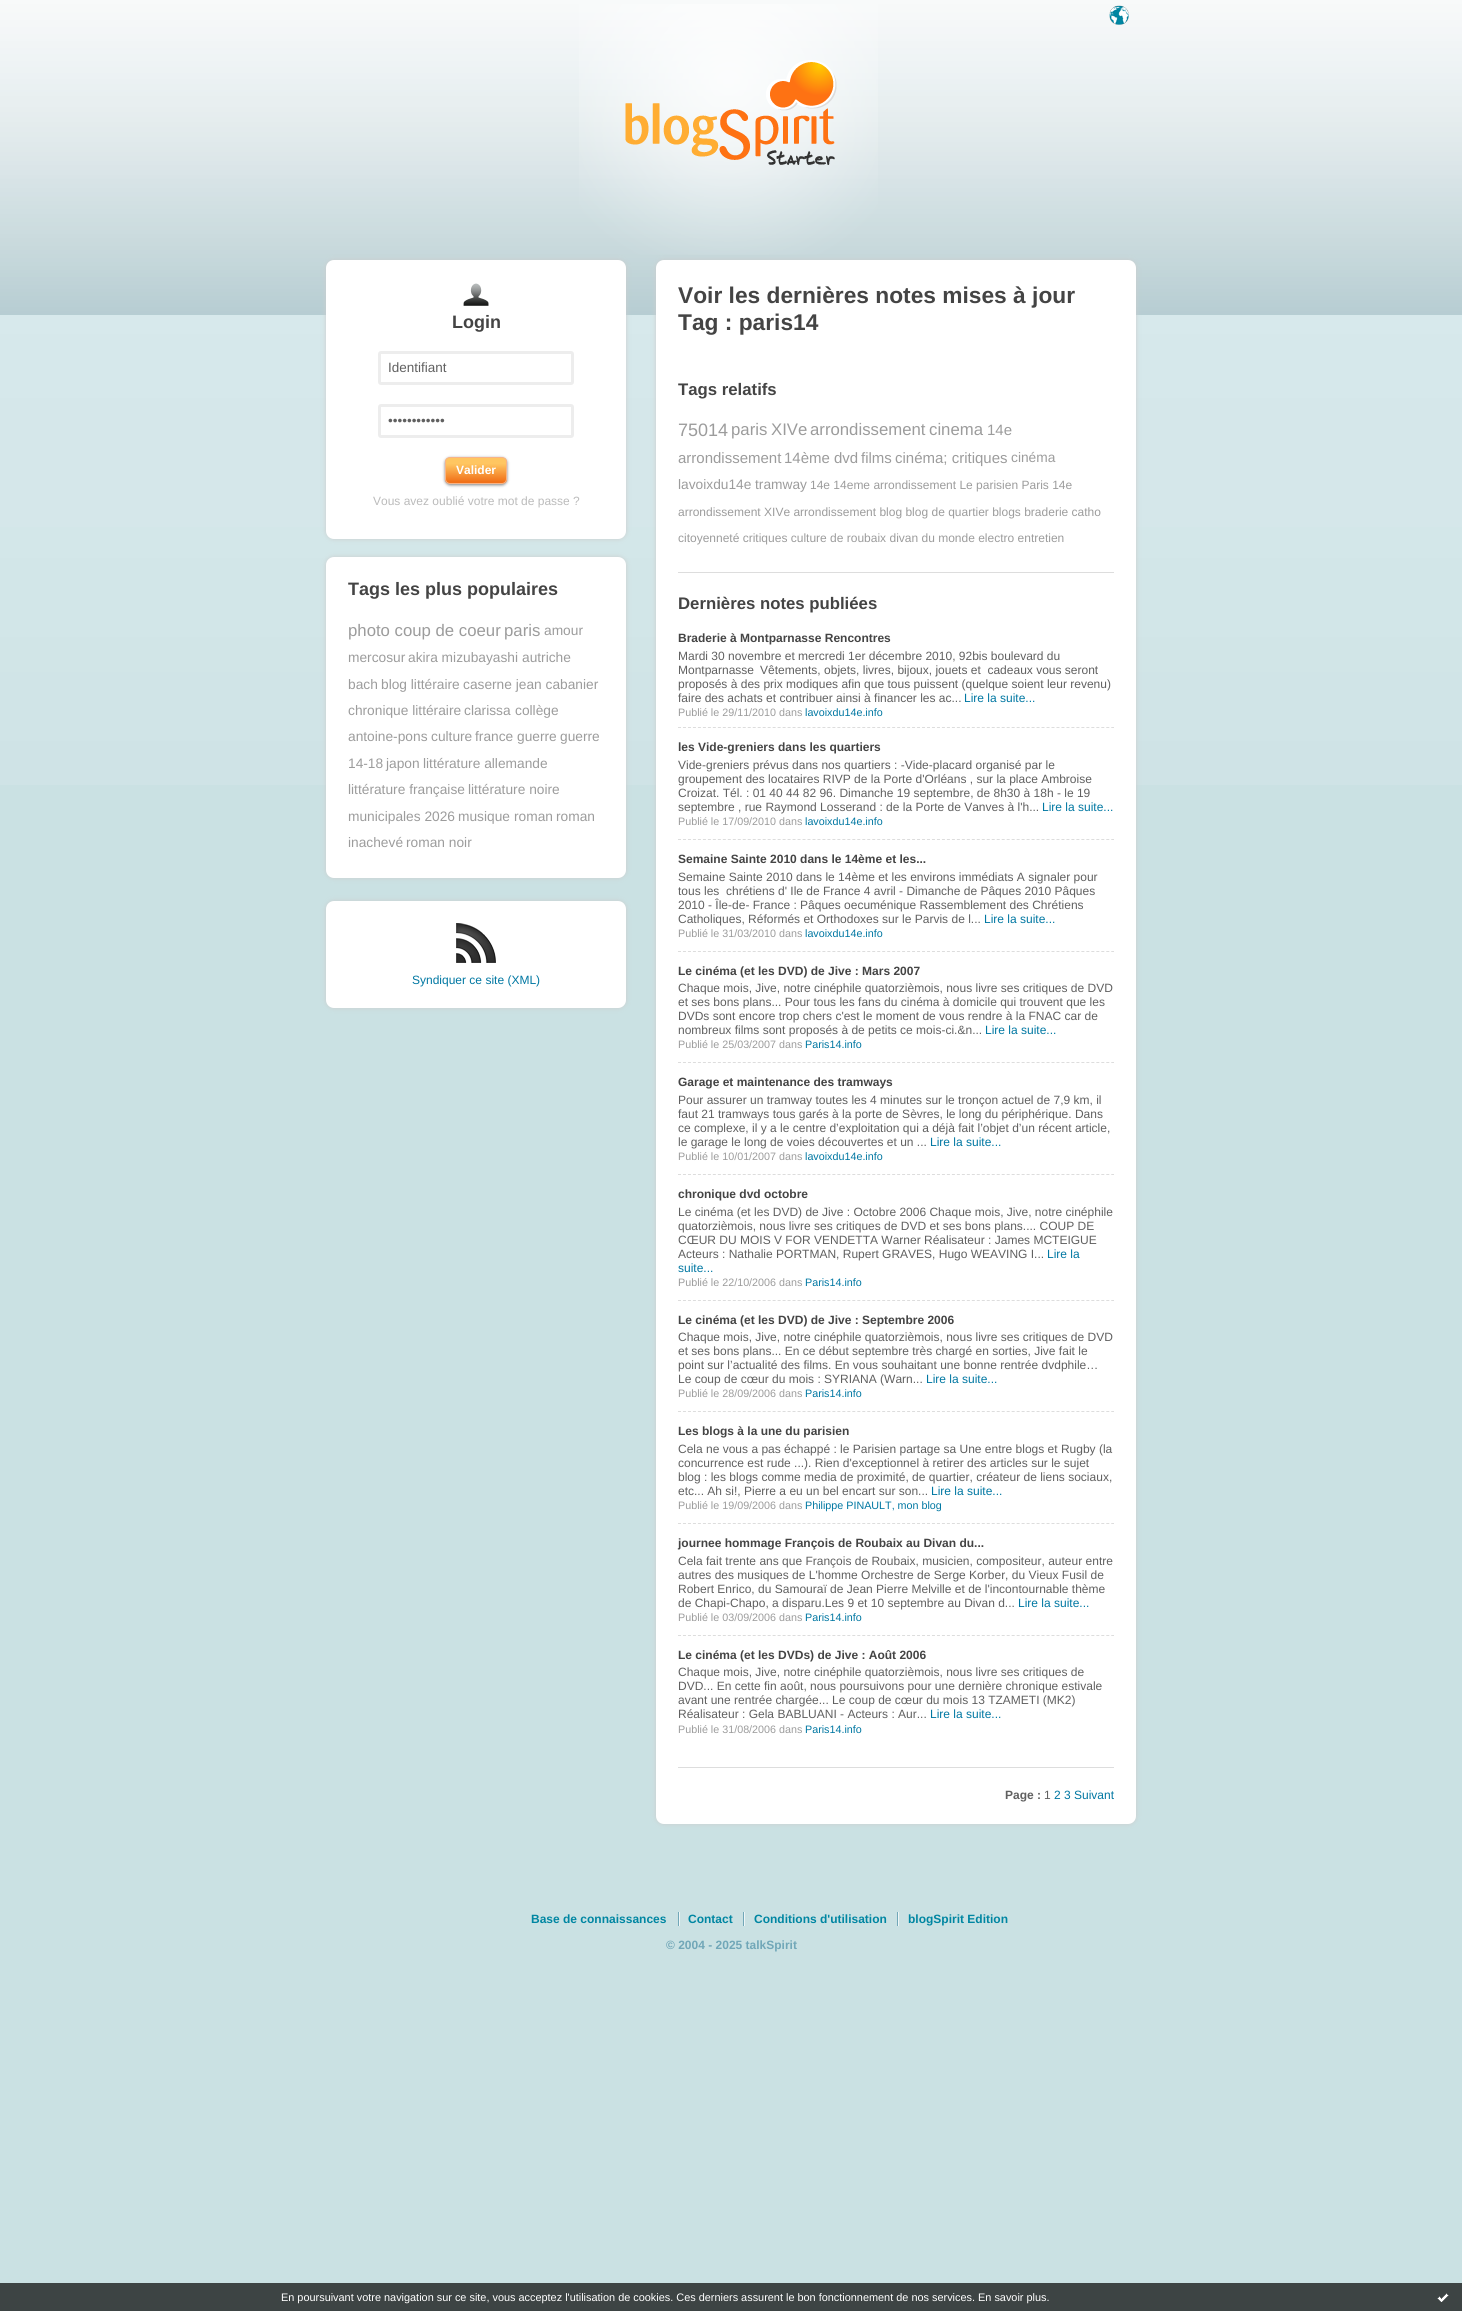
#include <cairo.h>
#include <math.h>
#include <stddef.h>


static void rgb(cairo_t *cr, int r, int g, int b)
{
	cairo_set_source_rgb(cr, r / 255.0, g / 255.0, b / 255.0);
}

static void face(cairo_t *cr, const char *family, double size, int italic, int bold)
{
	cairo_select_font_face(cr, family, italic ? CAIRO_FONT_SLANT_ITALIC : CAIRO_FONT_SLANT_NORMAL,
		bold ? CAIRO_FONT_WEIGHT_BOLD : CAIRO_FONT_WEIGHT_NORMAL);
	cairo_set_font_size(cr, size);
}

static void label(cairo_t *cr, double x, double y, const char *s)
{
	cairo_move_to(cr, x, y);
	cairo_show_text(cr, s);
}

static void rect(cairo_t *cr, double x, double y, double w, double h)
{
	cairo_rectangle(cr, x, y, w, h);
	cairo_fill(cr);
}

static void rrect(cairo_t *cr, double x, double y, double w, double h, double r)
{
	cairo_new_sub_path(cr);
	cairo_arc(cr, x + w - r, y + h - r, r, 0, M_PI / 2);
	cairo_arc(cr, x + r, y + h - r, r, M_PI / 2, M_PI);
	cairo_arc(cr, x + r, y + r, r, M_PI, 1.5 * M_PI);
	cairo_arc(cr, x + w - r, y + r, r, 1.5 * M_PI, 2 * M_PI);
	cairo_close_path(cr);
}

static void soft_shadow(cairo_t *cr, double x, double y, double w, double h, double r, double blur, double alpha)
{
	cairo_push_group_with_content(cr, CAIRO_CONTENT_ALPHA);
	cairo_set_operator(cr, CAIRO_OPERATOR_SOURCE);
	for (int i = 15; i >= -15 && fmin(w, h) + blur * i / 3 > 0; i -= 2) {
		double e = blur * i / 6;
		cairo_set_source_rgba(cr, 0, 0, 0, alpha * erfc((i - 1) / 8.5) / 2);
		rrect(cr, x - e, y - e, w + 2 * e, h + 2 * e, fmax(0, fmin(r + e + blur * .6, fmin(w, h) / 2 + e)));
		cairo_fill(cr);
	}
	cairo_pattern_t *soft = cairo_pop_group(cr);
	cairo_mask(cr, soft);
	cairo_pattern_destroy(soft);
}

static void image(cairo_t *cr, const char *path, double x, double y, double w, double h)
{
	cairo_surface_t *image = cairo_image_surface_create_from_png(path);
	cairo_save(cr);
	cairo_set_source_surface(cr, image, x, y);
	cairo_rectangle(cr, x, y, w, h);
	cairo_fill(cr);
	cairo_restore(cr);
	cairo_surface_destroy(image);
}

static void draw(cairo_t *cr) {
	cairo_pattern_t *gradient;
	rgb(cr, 202, 225, 227);
	cairo_paint(cr);
	image(cr, "image0.png", 0, 0, 1462, 785);
	rgb(cr, 204, 204, 204);
	soft_shadow(cr, 326, 260, 300, 279, 8, 2.5, 1);
	soft_shadow(cr, 656, 260, 480, 1564, 8, 2.5, 1);
	image(cr, "image1.png", 579, 4, 299, 251);
	image(cr, "image2.png", 1109, 5, 20, 20);
	image(cr, "image3.png", 625, 60, 212, 105);
	rgb(cr, 255, 255, 255);
	rrect(cr, 326, 260, 300, 279, 8);
	cairo_fill(cr);
	image(cr, "image4.png", 463, 283, 26, 23);
	face(cr, "Liberation Sans", 18, 0, 1);
	rgb(cr, 68, 68, 68);
	label(cr, 452, 328, "Login");
	rrect(cr, 379.5, 352.5, 193, 31, 1.5);
	rgb(cr, 237, 237, 237);
	cairo_set_line_width(cr, 3);
	cairo_stroke(cr);
	face(cr, "Liberation Sans", 13.5, 0, 0);
	rgb(cr, 96, 96, 96);
	label(cr, 388, 372, "Identifiant");
	rrect(cr, 379.5, 405.5, 193, 31, 1.5);
	rgb(cr, 237, 237, 237);
	cairo_stroke(cr);
	rgb(cr, 96, 96, 96);
	label(cr, 388, 425, "••••••••••••");
	rgb(cr, 0, 0, 0);
	soft_shadow(cr, 445, 458, 62, 27, 5, 1.5, 0.5);
	cairo_save(cr);
	rrect(cr, 445, 457, 62, 27, 5);
	cairo_clip(cr);
	gradient = cairo_pattern_create_linear(446, 483, 446, 458);
	cairo_pattern_add_color_stop_rgba(gradient, 0.05, 0.945, 0.443, 0.098, 1);
	cairo_pattern_add_color_stop_rgba(gradient, 0.77, 1, 0.776, 0.38, 1);
	cairo_set_source(cr, gradient);
	cairo_pattern_destroy(gradient);
	rect(cr, 445, 458, 62, 25);
	cairo_restore(cr);
	rrect(cr, 445.5, 457.5, 61, 26, 4.5);
	rgb(cr, 248, 179, 134);
	cairo_set_line_width(cr, 1);
	cairo_stroke(cr);
	face(cr, "Liberation Sans", 12, 0, 1);
	rgb(cr, 255, 255, 255);
	label(cr, 456, 474, "Valider");
	face(cr, "Liberation Sans", 12, 0, 0);
	rgb(cr, 187, 187, 187);
	label(cr, 373, 505, "Vous avez oublié votre mot de passe ?");
	rgb(cr, 204, 204, 204);
	soft_shadow(cr, 326, 557, 300, 321, 8, 2.5, 1);
	rgb(cr, 255, 255, 255);
	rrect(cr, 326, 557, 300, 321, 8);
	cairo_fill(cr);
	face(cr, "Liberation Sans", 18, 0, 1);
	rgb(cr, 68, 68, 68);
	label(cr, 348, 595, "Tags les plus populaires");
	face(cr, "Liberation Sans", 16.75, 0, 0);
	rgb(cr, 156, 156, 156);
	label(cr, 348, 636, "photo coup de coeur");
	label(cr, 504, 636, "paris");
	face(cr, "Liberation Sans", 13.75, 0, 0);
	label(cr, 544, 635, "amour");
	label(cr, 348, 662, "mercosur");
	label(cr, 408, 662, "akira mizubayashi");
	label(cr, 522, 662, "autriche");
	label(cr, 348, 689, "bach");
	label(cr, 381, 689, "blog littéraire");
	label(cr, 463, 689, "caserne jean cabanier");
	label(cr, 348, 715, "chronique littéraire");
	label(cr, 464, 715, "clarissa");
	label(cr, 515, 715, "collège");
	label(cr, 348, 741, "antoine-pons");
	label(cr, 431, 741, "culture");
	label(cr, 475, 741, "france");
	label(cr, 517, 741, "guerre");
	label(cr, 560, 741, "guerre");
	label(cr, 348, 768, "14-18");
	label(cr, 386, 768, "japon");
	label(cr, 423, 768, "littérature allemande");
	label(cr, 348, 794, "littérature française");
	label(cr, 468, 794, "littérature noire");
	label(cr, 348, 821, "municipales 2026");
	label(cr, 458, 821, "musique");
	label(cr, 514, 821, "roman");
	label(cr, 556, 821, "roman");
	label(cr, 348, 847, "inachevé");
	label(cr, 406, 847, "roman noir");
	rgb(cr, 255, 255, 255);
	rrect(cr, 656, 260, 480, 1564, 8);
	cairo_fill(cr);
	face(cr, "Liberation Sans", 22.75, 0, 1);
	rgb(cr, 68, 68, 68);
	label(cr, 678, 303, "Voir les dernières notes mises à jour");
	label(cr, 678, 330, "Tag : paris14");
	rgb(cr, 221, 221, 221);
	rect(cr, 678, 572, 436, 1);
	face(cr, "Liberation Sans", 16.75, 0, 1);
	rgb(cr, 68, 68, 68);
	label(cr, 678, 395, "Tags relatifs");
	face(cr, "Liberation Sans", 18, 0, 0);
	rgb(cr, 156, 156, 156);
	label(cr, 678, 436, "75014");
	face(cr, "Liberation Sans", 16.75, 0, 0);
	label(cr, 731, 435, "paris");
	label(cr, 771, 435, "XIVe");
	label(cr, 810, 435, "arrondissement");
	label(cr, 929, 435, "cinema");
	face(cr, "Liberation Sans", 15, 0, 0);
	label(cr, 987, 435, "14e");
	label(cr, 678, 463, "arrondissement");
	label(cr, 784, 463, "14ème");
	label(cr, 834, 463, "dvd");
	label(cr, 861, 463, "films");
	label(cr, 895, 463, "cinéma; critiques");
	face(cr, "Liberation Sans", 13.75, 0, 0);
	label(cr, 1011, 462, "cinéma");
	label(cr, 678, 489, "lavoixdu14e");
	label(cr, 755, 489, "tramway");
	face(cr, "Liberation Sans", 12, 0, 0);
	label(cr, 810, 489, "14e 14eme arrondissement Le parisien Paris 14e");
	label(cr, 678, 516, "arrondissement XIVe arrondissement blog blog de quartier blogs braderie catho");
	label(cr, 678, 542, "citoyenneté critiques culture de roubaix divan du monde electro entretien");
	rgb(cr, 221, 221, 221);
	rect(cr, 678, 1767, 436, 1);
	face(cr, "Liberation Sans", 16.75, 0, 1);
	rgb(cr, 68, 68, 68);
	label(cr, 678, 609, "Dernières notes publiées");
	cairo_new_path(cr);
	cairo_move_to(cr, 678, 727.5);
	cairo_line_to(cr, 1114, 727.5);
	rgb(cr, 221, 221, 221);
	cairo_set_dash(cr, (double[]){3, 1.98}, 2, 0);
	cairo_stroke(cr);
	face(cr, "Liberation Sans", 12, 0, 1);
	rgb(cr, 68, 68, 68);
	label(cr, 678, 642, "Braderie à Montparnasse Rencontres");
	face(cr, "Liberation Sans", 12, 0, 0);
	rgb(cr, 96, 96, 96);
	label(cr, 678, 660, "Mardi 30 novembre et mercredi 1er décembre 2010, 92bis boulevard du");
	label(cr, 678, 674, "Montparnasse");
	label(cr, 760, 674, "Vêtements, objets, livres, bijoux, jouets et  cadeaux vous seront");
	label(cr, 678, 688, "proposés à des prix modiques afin que tous puissent (quelque soient leur revenu)");
	label(cr, 678, 702, "faire des achats et contribuer ainsi à financer les ac...");
	rgb(cr, 0, 119, 162);
	label(cr, 964, 702, "Lire la suite...");
	face(cr, "Liberation Sans", 10.75, 0, 0);
	rgb(cr, 156, 156, 156);
	label(cr, 678, 716, "Publié le 29/11/2010 dans");
	rgb(cr, 0, 119, 162);
	label(cr, 805, 716, "lavoixdu14e.info");
	cairo_new_path(cr);
	cairo_move_to(cr, 678, 839.5);
	cairo_line_to(cr, 1114, 839.5);
	rgb(cr, 221, 221, 221);
	cairo_stroke(cr);
	face(cr, "Liberation Sans", 12, 0, 1);
	rgb(cr, 68, 68, 68);
	label(cr, 678, 751, "les Vide-greniers dans les quartiers");
	face(cr, "Liberation Sans", 12, 0, 0);
	rgb(cr, 96, 96, 96);
	label(cr, 678, 769, "Vide-greniers prévus dans nos quartiers : -Vide-placard organisé par le");
	label(cr, 678, 783, "groupement des locataires RIVP de la Porte d'Orléans , sur la place Ambroise");
	label(cr, 678, 797, "Croizat. Tél. : 01 40 44 82 96. Dimanche 19 septembre, de 8h30 à 18h - le 19");
	label(cr, 678, 811, "septembre , rue Raymond Losserand : de la Porte de Vanves à l'h...");
	rgb(cr, 0, 119, 162);
	label(cr, 1042, 811, "Lire la suite...");
	face(cr, "Liberation Sans", 10.75, 0, 0);
	rgb(cr, 156, 156, 156);
	label(cr, 678, 825, "Publié le 17/09/2010 dans");
	rgb(cr, 0, 119, 162);
	label(cr, 805, 825, "lavoixdu14e.info");
	cairo_new_path(cr);
	cairo_move_to(cr, 678, 951.5);
	cairo_line_to(cr, 1114, 951.5);
	rgb(cr, 221, 221, 221);
	cairo_stroke(cr);
	face(cr, "Liberation Sans", 12, 0, 1);
	rgb(cr, 68, 68, 68);
	label(cr, 678, 863, "Semaine Sainte 2010 dans le 14ème et les...");
	face(cr, "Liberation Sans", 12, 0, 0);
	rgb(cr, 96, 96, 96);
	label(cr, 678, 881, "Semaine Sainte 2010 dans le 14ème et les environs immédiats A signaler pour");
	label(cr, 678, 895, "tous les  chrétiens d' Ile de France 4 avril - Dimanche de Pâques 2010 Pâques");
	label(cr, 678, 909, "2010 - Île-de- France : Pâques oecuménique Rassemblement des Chrétiens");
	label(cr, 678, 923, "Catholiques, Réformés et Orthodoxes sur le Parvis de l...");
	rgb(cr, 0, 119, 162);
	label(cr, 984, 923, "Lire la suite...");
	face(cr, "Liberation Sans", 10.75, 0, 0);
	rgb(cr, 156, 156, 156);
	label(cr, 678, 937, "Publié le 31/03/2010 dans");
	rgb(cr, 0, 119, 162);
	label(cr, 805, 937, "lavoixdu14e.info");
	cairo_new_path(cr);
	cairo_move_to(cr, 678, 1062.5);
	cairo_line_to(cr, 1114, 1062.5);
	rgb(cr, 221, 221, 221);
	cairo_stroke(cr);
	face(cr, "Liberation Sans", 12, 0, 1);
	rgb(cr, 68, 68, 68);
	label(cr, 678, 975, "Le cinéma (et les DVD) de Jive : Mars 2007");
	face(cr, "Liberation Sans", 12, 0, 0);
	rgb(cr, 96, 96, 96);
	label(cr, 678, 992, "Chaque mois, Jive, notre cinéphile quatorzièmois, nous livre ses critiques de DVD");
	label(cr, 678, 1006, "et ses bons plans... Pour tous les fans du cinéma à domicile qui trouvent que les");
	label(cr, 678, 1020, "DVDs sont encore trop chers c'est le moment de vous rendre à la FNAC car de");
	label(cr, 678, 1034, "nombreux films sont proposés à de petits ce mois-ci.&n...");
	rgb(cr, 0, 119, 162);
	label(cr, 985, 1034, "Lire la suite...");
	face(cr, "Liberation Sans", 10.75, 0, 0);
	rgb(cr, 156, 156, 156);
	label(cr, 678, 1048, "Publié le 25/03/2007 dans");
	rgb(cr, 0, 119, 162);
	label(cr, 805, 1048, "Paris14.info");
	cairo_new_path(cr);
	cairo_move_to(cr, 678, 1174.5);
	cairo_line_to(cr, 1114, 1174.5);
	rgb(cr, 221, 221, 221);
	cairo_stroke(cr);
	face(cr, "Liberation Sans", 12, 0, 1);
	rgb(cr, 68, 68, 68);
	label(cr, 678, 1086, "Garage et maintenance des tramways");
	face(cr, "Liberation Sans", 12, 0, 0);
	rgb(cr, 96, 96, 96);
	label(cr, 678, 1104, "Pour assurer un tramway toutes les 4 minutes sur le tronçon actuel de 7,9 km, il");
	label(cr, 678, 1118, "faut 21 tramways tous garés à la porte de Sèvres, le long du périphérique. Dans");
	label(cr, 678, 1132, "ce complexe, il y a le centre d’exploitation qui a déjà fait l’objet d’un récent article,");
	label(cr, 678, 1146, "le garage le long de voies découvertes et un ...");
	rgb(cr, 0, 119, 162);
	label(cr, 930, 1146, "Lire la suite...");
	face(cr, "Liberation Sans", 10.75, 0, 0);
	rgb(cr, 156, 156, 156);
	label(cr, 678, 1160, "Publié le 10/01/2007 dans");
	rgb(cr, 0, 119, 162);
	label(cr, 805, 1160, "lavoixdu14e.info");
	cairo_new_path(cr);
	cairo_move_to(cr, 678, 1300.5);
	cairo_line_to(cr, 1114, 1300.5);
	rgb(cr, 221, 221, 221);
	cairo_stroke(cr);
	face(cr, "Liberation Sans", 12, 0, 1);
	rgb(cr, 68, 68, 68);
	label(cr, 678, 1198, "chronique dvd octobre");
	face(cr, "Liberation Sans", 12, 0, 0);
	rgb(cr, 96, 96, 96);
	label(cr, 678, 1216, "Le cinéma (et les DVD) de Jive : Octobre 2006 Chaque mois, Jive, notre cinéphile");
	label(cr, 678, 1230, "quatorzièmois, nous livre ses critiques de DVD et ses bons plans.... COUP DE");
	label(cr, 678, 1244, "CŒUR DU MOIS V FOR VENDETTA Warner Réalisateur : James MCTEIGUE");
	label(cr, 678, 1258, "Acteurs : Nathalie PORTMAN, Rupert GRAVES, Hugo WEAVING I...");
	rgb(cr, 0, 119, 162);
	label(cr, 1047, 1258, "Lire la");
	label(cr, 678, 1272, "suite...");
	face(cr, "Liberation Sans", 10.75, 0, 0);
	rgb(cr, 156, 156, 156);
	label(cr, 678, 1286, "Publié le 22/10/2006 dans");
	rgb(cr, 0, 119, 162);
	label(cr, 805, 1286, "Paris14.info");
	cairo_new_path(cr);
	cairo_move_to(cr, 678, 1411.5);
	cairo_line_to(cr, 1114, 1411.5);
	rgb(cr, 221, 221, 221);
	cairo_stroke(cr);
	face(cr, "Liberation Sans", 12, 0, 1);
	rgb(cr, 68, 68, 68);
	label(cr, 678, 1324, "Le cinéma (et les DVD) de Jive : Septembre 2006");
	face(cr, "Liberation Sans", 12, 0, 0);
	rgb(cr, 96, 96, 96);
	label(cr, 678, 1341, "Chaque mois, Jive, notre cinéphile quatorzièmois, nous livre ses critiques de DVD");
	label(cr, 678, 1355, "et ses bons plans... En ce début septembre très chargé en sorties, Jive fait le");
	label(cr, 678, 1369, "point sur l’actualité des films. En vous souhaitant une bonne rentrée dvdphile…");
	label(cr, 678, 1383, "Le coup de cœur du mois : SYRIANA (Warn...");
	rgb(cr, 0, 119, 162);
	label(cr, 926, 1383, "Lire la suite...");
	face(cr, "Liberation Sans", 10.75, 0, 0);
	rgb(cr, 156, 156, 156);
	label(cr, 678, 1397, "Publié le 28/09/2006 dans");
	rgb(cr, 0, 119, 162);
	label(cr, 805, 1397, "Paris14.info");
	cairo_new_path(cr);
	cairo_move_to(cr, 678, 1523.5);
	cairo_line_to(cr, 1114, 1523.5);
	rgb(cr, 221, 221, 221);
	cairo_stroke(cr);
	face(cr, "Liberation Sans", 12, 0, 1);
	rgb(cr, 68, 68, 68);
	label(cr, 678, 1435, "Les blogs à la une du parisien");
	face(cr, "Liberation Sans", 12, 0, 0);
	rgb(cr, 96, 96, 96);
	label(cr, 678, 1453, "Cela ne vous a pas échappé : le Parisien partage sa Une entre blogs et Rugby (la");
	label(cr, 678, 1467, "concurrence est rude ...). Rien d'exceptionnel à retirer des articles sur le sujet");
	label(cr, 678, 1481, "blog : les blogs comme media de proximité, de quartier, créateur de liens sociaux,");
	label(cr, 678, 1495, "etc... Ah si!, Pierre a eu un bel encart sur son...");
	rgb(cr, 0, 119, 162);
	label(cr, 931, 1495, "Lire la suite...");
	face(cr, "Liberation Sans", 10.75, 0, 0);
	rgb(cr, 156, 156, 156);
	label(cr, 678, 1509, "Publié le 19/09/2006 dans");
	rgb(cr, 0, 119, 162);
	label(cr, 805, 1509, "Philippe PINAULT, mon blog");
	cairo_new_path(cr);
	cairo_move_to(cr, 678, 1635.5);
	cairo_line_to(cr, 1114, 1635.5);
	rgb(cr, 221, 221, 221);
	cairo_stroke(cr);
	face(cr, "Liberation Sans", 12, 0, 1);
	rgb(cr, 68, 68, 68);
	label(cr, 678, 1547, "journee hommage François de Roubaix au Divan du...");
	face(cr, "Liberation Sans", 12, 0, 0);
	rgb(cr, 96, 96, 96);
	label(cr, 678, 1565, "Cela fait trente ans que François de Roubaix, musicien, compositeur, auteur entre");
	label(cr, 678, 1579, "autres des musiques de L'homme Orchestre de Serge Korber, du Vieux Fusil de");
	label(cr, 678, 1593, "Robert Enrico, du Samouraï de Jean Pierre Melville et de l'incontournable thème");
	label(cr, 678, 1607, "de Chapi-Chapo, a disparu.Les 9 et 10 septembre au Divan d...");
	rgb(cr, 0, 119, 162);
	label(cr, 1018, 1607, "Lire la suite...");
	face(cr, "Liberation Sans", 10.75, 0, 0);
	rgb(cr, 156, 156, 156);
	label(cr, 678, 1621, "Publié le 03/09/2006 dans");
	rgb(cr, 0, 119, 162);
	label(cr, 805, 1621, "Paris14.info");
	face(cr, "Liberation Sans", 12, 0, 1);
	rgb(cr, 68, 68, 68);
	label(cr, 678, 1659, "Le cinéma (et les DVDs) de Jive : Août 2006");
	face(cr, "Liberation Sans", 12, 0, 0);
	rgb(cr, 96, 96, 96);
	label(cr, 678, 1676, "Chaque mois, Jive, notre cinéphile quatorzièmois, nous livre ses critiques de");
	label(cr, 678, 1690, "DVD... En cette fin août, nous poursuivons pour une dernière chronique estivale");
	label(cr, 678, 1704, "avant une rentrée chargée... Le coup de cœur du mois 13 TZAMETI (MK2)");
	label(cr, 678, 1718, "Réalisateur : Gela BABLUANI - Acteurs : Aur...");
	rgb(cr, 0, 119, 162);
	label(cr, 930, 1718, "Lire la suite...");
	face(cr, "Liberation Sans", 10.75, 0, 0);
	rgb(cr, 156, 156, 156);
	label(cr, 678, 1733, "Publié le 31/08/2006 dans");
	rgb(cr, 0, 119, 162);
	label(cr, 805, 1733, "Paris14.info");
	face(cr, "Liberation Sans", 12, 0, 1);
	rgb(cr, 96, 96, 96);
	label(cr, 1005, 1799, "Page :");
	face(cr, "Liberation Sans", 12, 0, 0);
	label(cr, 1044, 1799, "1");
	rgb(cr, 0, 119, 162);
	label(cr, 1054, 1799, "2 3 Suivant");
	rgb(cr, 204, 204, 204);
	soft_shadow(cr, 326, 901, 300, 107, 8, 2.5, 1);
	rgb(cr, 255, 255, 255);
	rrect(cr, 326, 901, 300, 107, 8);
	cairo_fill(cr);
	image(cr, "image5.png", 456, 923, 40, 40);
	rgb(cr, 0, 119, 162);
	label(cr, 412, 984, "Syndiquer ce site (XML)");
	rgb(cr, 113, 167, 184);
	rect(cr, 678, 1912, 1, 14);
	face(cr, "Liberation Sans", 12, 0, 1);
	rgb(cr, 0, 134, 162);
	label(cr, 531, 1923, "Base de connaissances");
	rgb(cr, 113, 167, 184);
	rect(cr, 743, 1912, 1, 14);
	rgb(cr, 239, 246, 247);
	rect(cr, 679, 1912, 1, 14);
	rgb(cr, 0, 134, 162);
	label(cr, 688, 1923, "Contact");
	rgb(cr, 113, 167, 184);
	rect(cr, 897, 1912, 1, 14);
	rgb(cr, 239, 246, 247);
	rect(cr, 744, 1912, 1, 14);
	rgb(cr, 0, 134, 162);
	label(cr, 754, 1923, "Conditions d'utilisation");
	rgb(cr, 239, 246, 247);
	rect(cr, 898, 1912, 1, 14);
	rgb(cr, 0, 134, 162);
	label(cr, 908, 1923, "blogSpirit Edition");
	rgb(cr, 113, 167, 184);
	label(cr, 666, 1949, "© 2004 - 2025 talkSpirit");
	rgb(cr, 61, 68, 68);
	rect(cr, 0, 2283, 1462, 28);
	face(cr, "Liberation Sans", 10.9, 0, 0);
	rgb(cr, 255, 255, 255);
	label(cr, 281, 2301, "En poursuivant votre navigation sur ce site, vous acceptez l'utilisation de cookies. Ces derniers assurent le bon fonctionnement de nos services. En savoir plus.");
	image(cr, "image6.png", 1437, 2293, 12, 9);
}

int main(void) {
	cairo_surface_t *surface = cairo_image_surface_create(CAIRO_FORMAT_RGB24, 1462, 2311);
	cairo_t *cr = cairo_create(surface);
	cairo_font_options_t *options = cairo_font_options_create();
	cairo_font_options_set_hint_metrics(options, CAIRO_HINT_METRICS_OFF);
	cairo_font_options_set_hint_style(options, CAIRO_HINT_STYLE_NONE);
	cairo_set_font_options(cr, options);
	cairo_set_miter_limit(cr, 4);
	draw(cr);
	cairo_surface_write_to_png(surface, "render.png");
	cairo_font_options_destroy(options);
	cairo_destroy(cr);
	cairo_surface_destroy(surface);
	return 0;
}
